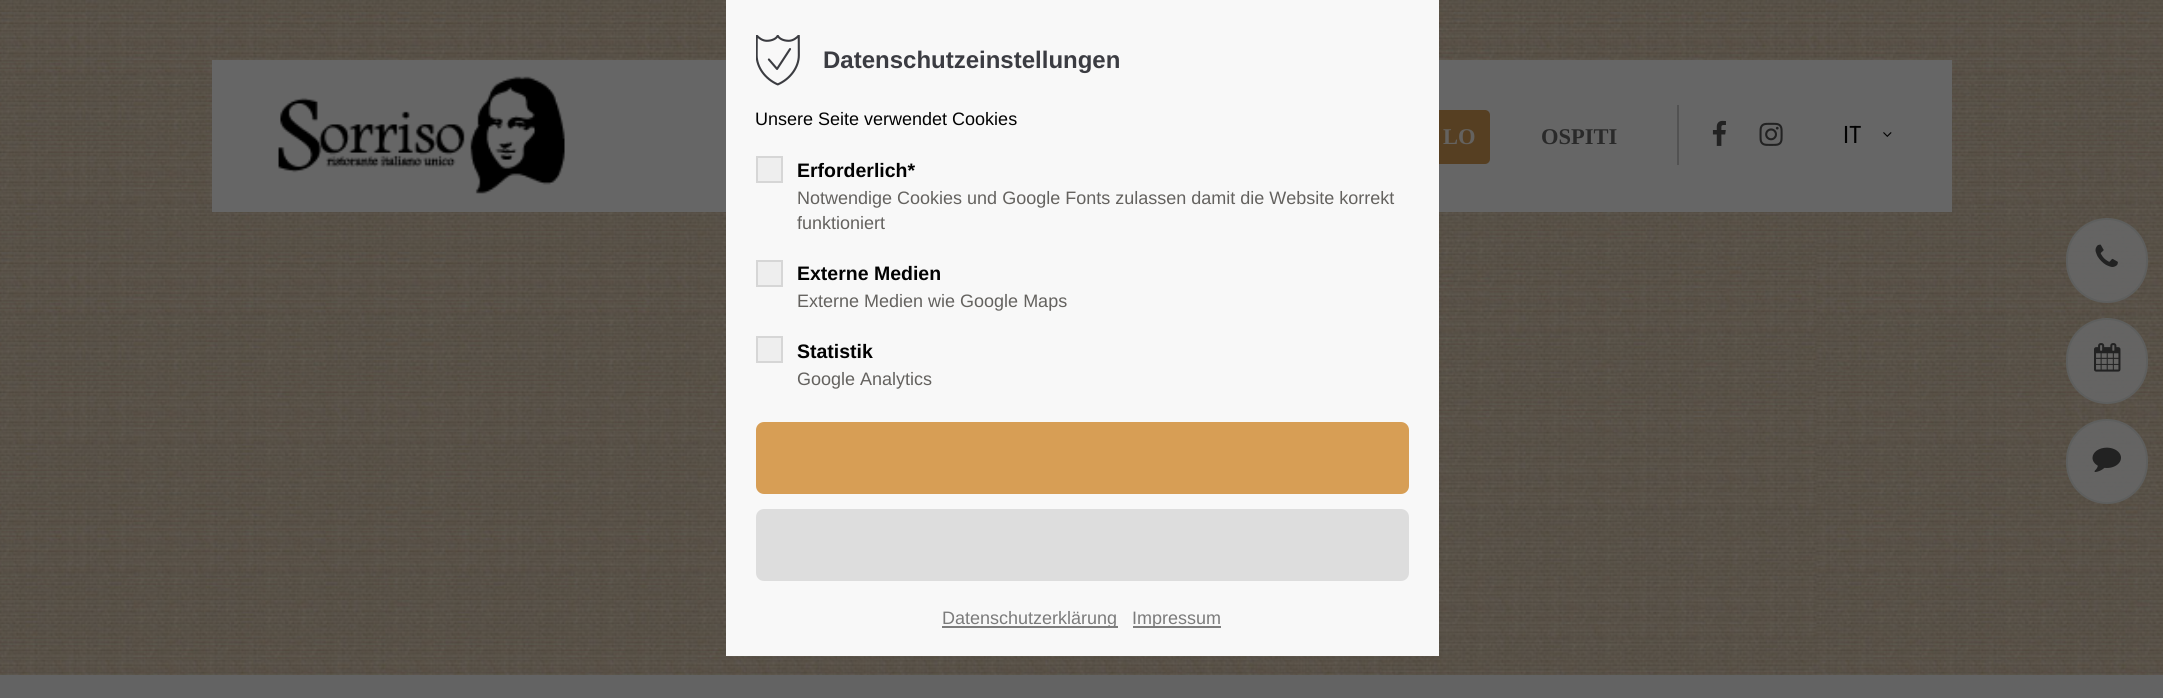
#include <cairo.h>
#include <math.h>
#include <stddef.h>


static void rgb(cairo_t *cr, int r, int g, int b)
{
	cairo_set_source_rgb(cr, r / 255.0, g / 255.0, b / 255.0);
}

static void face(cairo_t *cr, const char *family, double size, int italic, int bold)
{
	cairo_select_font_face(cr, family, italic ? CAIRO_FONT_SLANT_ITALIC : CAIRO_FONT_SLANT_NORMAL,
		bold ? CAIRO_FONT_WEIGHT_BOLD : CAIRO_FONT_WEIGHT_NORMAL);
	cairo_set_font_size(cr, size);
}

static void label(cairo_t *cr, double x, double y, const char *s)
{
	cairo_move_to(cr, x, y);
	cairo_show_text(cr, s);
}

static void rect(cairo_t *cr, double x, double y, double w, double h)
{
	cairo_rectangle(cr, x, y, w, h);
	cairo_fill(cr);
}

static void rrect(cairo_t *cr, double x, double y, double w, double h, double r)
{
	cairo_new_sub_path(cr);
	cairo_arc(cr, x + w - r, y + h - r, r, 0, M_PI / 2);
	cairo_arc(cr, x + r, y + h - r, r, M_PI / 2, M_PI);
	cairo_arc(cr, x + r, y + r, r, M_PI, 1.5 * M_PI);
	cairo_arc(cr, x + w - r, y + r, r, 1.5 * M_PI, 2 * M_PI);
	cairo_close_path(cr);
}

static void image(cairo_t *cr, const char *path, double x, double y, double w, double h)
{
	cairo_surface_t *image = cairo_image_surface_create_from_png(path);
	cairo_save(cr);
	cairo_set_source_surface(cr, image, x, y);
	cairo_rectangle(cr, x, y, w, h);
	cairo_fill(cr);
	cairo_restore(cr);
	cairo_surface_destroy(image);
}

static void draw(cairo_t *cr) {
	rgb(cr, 255, 255, 255);
	cairo_paint(cr);
	image(cr, "image4.png", 0, 0, 2163, 675);
	rgb(cr, 102, 102, 102);
	rect(cr, 212, 60, 1740, 152);
	rgb(cr, 86, 63, 34);
	rrect(cr, 1209, 110, 281, 54, 5);
	cairo_fill(cr);
	rgb(cr, 248, 248, 248);
	rect(cr, 726, 0, 713, 656);
	image(cr, "image0.png", 756, 35, 44, 51);
	face(cr, "Liberation Sans", 24, 0, 1);
	rgb(cr, 59, 60, 66);
	label(cr, 823, 68, "Datenschutzeinstellungen");
	face(cr, "Liberation Sans", 18, 0, 0);
	rgb(cr, 2, 2, 2);
	label(cr, 755, 125, "Unsere Seite verwendet Cookies");
	rgb(cr, 238, 238, 238);
	cairo_rectangle(cr, 757, 157, 25, 25);
	cairo_fill_preserve(cr);
	rgb(cr, 214, 214, 214);
	cairo_stroke(cr);
	face(cr, "Liberation Sans", 19.5, 0, 1);
	rgb(cr, 2, 2, 2);
	label(cr, 797, 177, "Erforderlich*");
	face(cr, "Liberation Sans", 18, 0, 0);
	rgb(cr, 100, 98, 95);
	label(cr, 797, 204, "Notwendige Cookies und Google Fonts zulassen damit die Website korrekt");
	label(cr, 797, 229, "funktioniert");
	rgb(cr, 238, 238, 238);
	cairo_rectangle(cr, 757, 261, 25, 25);
	cairo_fill_preserve(cr);
	rgb(cr, 214, 214, 214);
	cairo_stroke(cr);
	face(cr, "Liberation Sans", 19.5, 0, 1);
	rgb(cr, 2, 2, 2);
	label(cr, 797, 280, "Externe Medien");
	face(cr, "Liberation Sans", 18, 0, 0);
	rgb(cr, 100, 98, 95);
	label(cr, 797, 307, "Externe Medien wie Google Maps");
	rgb(cr, 238, 238, 238);
	cairo_rectangle(cr, 757, 337, 25, 25);
	cairo_fill_preserve(cr);
	rgb(cr, 214, 214, 214);
	cairo_stroke(cr);
	face(cr, "Liberation Sans", 19.5, 0, 1);
	rgb(cr, 2, 2, 2);
	label(cr, 797, 358, "Statistik");
	face(cr, "Liberation Sans", 18, 0, 0);
	rgb(cr, 100, 98, 95);
	label(cr, 797, 385, "Google Analytics");
	rgb(cr, 215, 158, 85);
	rrect(cr, 756, 422, 653, 72, 8);
	cairo_fill(cr);
	rgb(cr, 221, 221, 221);
	rrect(cr, 756, 509, 653, 72, 8);
	cairo_fill(cr);
	rgb(cr, 124, 124, 124);
	rect(cr, 942, 626, 176, 2);
	rgb(cr, 123, 123, 123);
	label(cr, 942, 624, "Datenschutzerklärung");
	rgb(cr, 124, 124, 124);
	rect(cr, 1133, 626, 88, 2);
	rgb(cr, 123, 123, 123);
	label(cr, 1132, 624, "Impressum");
	cairo_set_source_rgba(cr, 0.4, 0.4, 0.4, 0.9);
	rrect(cr, 2067, 219, 80, 83, 40);
	cairo_fill_preserve(cr);
	rgb(cr, 94, 95, 94);
	cairo_stroke(cr);
	image(cr, "image1.png", 2095, 244, 23, 23);
	cairo_set_source_rgba(cr, 0.4, 0.4, 0.4, 0.9);
	rrect(cr, 2067, 319, 80, 84, 40);
	cairo_fill_preserve(cr);
	rgb(cr, 94, 95, 94);
	cairo_stroke(cr);
	image(cr, "image2.png", 2094, 343, 27, 29);
	cairo_set_source_rgba(cr, 0.4, 0.4, 0.4, 0.9);
	rrect(cr, 2067, 420, 80, 83, 40);
	cairo_fill_preserve(cr);
	rgb(cr, 94, 95, 94);
	cairo_stroke(cr);
	image(cr, "image3.png", 2092, 447, 29, 25);
	image(cr, "image5.png", 278, 76, 287, 118);
	face(cr, "Liberation Serif", 22.5, 0, 1);
	rgb(cr, 100, 98, 95);
	label(cr, 1443, 144, "LO");
	rgb(cr, 42, 42, 42);
	label(cr, 1541, 144, "OSPITI");
	rgb(cr, 82, 82, 82);
	rect(cr, 1677, 105, 2, 60);
	image(cr, "image6.png", 1712, 120, 14, 26);
	image(cr, "image7.png", 1759, 122, 24, 24);
	face(cr, "Roboto Condensed", 24, 0, 0);
	rgb(cr, 2, 2, 2);
	label(cr, 1843, 143, "IT");
	image(cr, "image8.png", 1883, 132, 9, 5);
	rgb(cr, 99, 99, 99);
	rect(cr, 0, 675, 2163, 23);
}

int main(void) {
	cairo_surface_t *surface = cairo_image_surface_create(CAIRO_FORMAT_RGB24, 2163, 698);
	cairo_t *cr = cairo_create(surface);
	cairo_font_options_t *options = cairo_font_options_create();
	cairo_font_options_set_hint_metrics(options, CAIRO_HINT_METRICS_OFF);
	cairo_font_options_set_hint_style(options, CAIRO_HINT_STYLE_NONE);
	cairo_set_font_options(cr, options);
	cairo_set_miter_limit(cr, 4);
	draw(cr);
	cairo_surface_write_to_png(surface, "render.png");
	cairo_font_options_destroy(options);
	cairo_destroy(cr);
	cairo_surface_destroy(surface);
	return 0;
}
